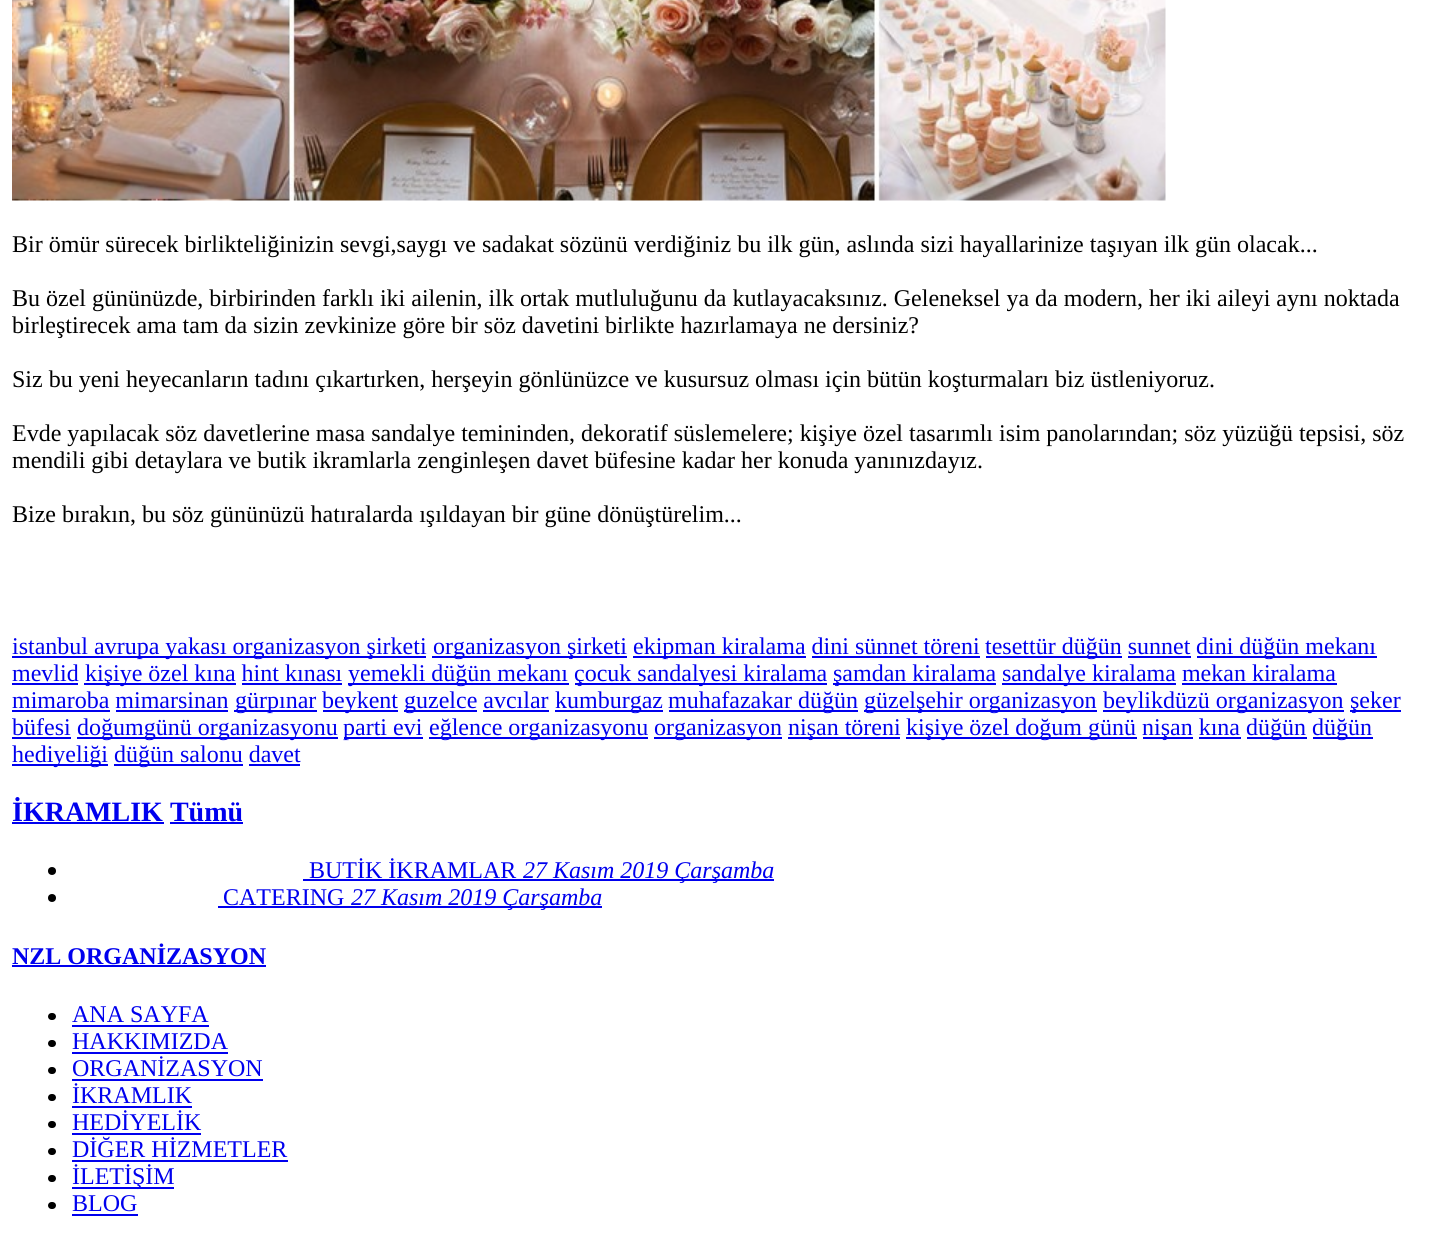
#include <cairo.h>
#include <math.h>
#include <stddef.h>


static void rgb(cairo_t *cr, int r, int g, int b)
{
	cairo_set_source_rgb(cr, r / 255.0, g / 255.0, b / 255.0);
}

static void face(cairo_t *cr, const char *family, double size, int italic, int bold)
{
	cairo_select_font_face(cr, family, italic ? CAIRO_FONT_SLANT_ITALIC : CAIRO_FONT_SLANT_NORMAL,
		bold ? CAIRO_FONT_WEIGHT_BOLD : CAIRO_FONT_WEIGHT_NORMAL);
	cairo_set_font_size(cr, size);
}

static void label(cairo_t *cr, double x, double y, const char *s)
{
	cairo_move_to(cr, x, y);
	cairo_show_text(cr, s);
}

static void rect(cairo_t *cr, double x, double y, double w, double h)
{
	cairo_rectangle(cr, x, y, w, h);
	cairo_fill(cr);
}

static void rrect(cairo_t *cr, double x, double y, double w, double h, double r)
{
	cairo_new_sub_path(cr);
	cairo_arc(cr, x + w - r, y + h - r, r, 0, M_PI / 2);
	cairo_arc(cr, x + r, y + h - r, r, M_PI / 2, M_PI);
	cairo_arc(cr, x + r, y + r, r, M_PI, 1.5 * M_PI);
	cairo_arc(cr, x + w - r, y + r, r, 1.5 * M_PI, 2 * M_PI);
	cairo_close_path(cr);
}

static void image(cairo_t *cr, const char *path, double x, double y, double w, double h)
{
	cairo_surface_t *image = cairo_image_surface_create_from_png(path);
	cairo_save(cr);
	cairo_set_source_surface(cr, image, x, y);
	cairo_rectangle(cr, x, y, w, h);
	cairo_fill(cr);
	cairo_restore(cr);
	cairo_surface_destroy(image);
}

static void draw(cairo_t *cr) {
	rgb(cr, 255, 255, 255);
	cairo_paint(cr);
	image(cr, "image0.png", 12, 0, 1154, 201);
	face(cr, "Liberation Serif", 24, 0, 0);
	rgb(cr, 0, 0, 0);
	label(cr, 12, 252, "Bir ömür sürecek birlikteliğinizin sevgi,saygı ve sadakat sözünü verdiğiniz bu ilk gün, aslında sizi hayallarinize taşıyan ilk gün olacak...");
	label(cr, 12, 306, "Bu özel gününüzde, birbirinden farklı iki ailenin, ilk ortak mutluluğunu da kutlayacaksınız. Geleneksel ya da modern, her iki aileyi aynı noktada");
	label(cr, 12, 333, "birleştirecek ama tam da sizin zevkinize göre bir söz davetini birlikte hazırlamaya ne dersiniz?");
	label(cr, 12, 387, "Siz bu yeni heyecanların tadını çıkartırken, herşeyin gönlünüzce ve kusursuz olması için bütün koşturmaları biz üstleniyoruz.");
	label(cr, 12, 441, "Evde yapılacak söz davetlerine masa sandalye temininden, dekoratif süslemelere; kişiye özel tasarımlı isim panolarından; söz yüzüğü tepsisi, söz");
	label(cr, 12, 468, "mendili gibi detaylara ve butik ikramlarla zenginleşen davet büfesine kadar her konuda yanınızdayız.");
	label(cr, 12, 522, "Bize bırakın, bu söz gününüzü hatıralarda ışıldayan bir güne dönüştürelim...");
	rgb(cr, 0, 0, 238);
	rect(cr, 12, 656, 414, 2);
	label(cr, 12, 654, "istanbul avrupa yakası organizasyon şirketi");
	rect(cr, 432, 656, 195, 2);
	label(cr, 433, 654, "organizasyon şirketi");
	rect(cr, 633, 656, 173, 2);
	label(cr, 633, 654, "ekipman kiralama dini sünnet töreni");
	rect(cr, 986, 656, 136, 2);
	label(cr, 985, 654, "tesettür düğün sunnet");
	rect(cr, 1197, 656, 180, 2);
	label(cr, 1196, 654, "dini düğün mekanı");
	rect(cr, 812, 656, 168, 2);
	rect(cr, 1128, 656, 63, 2);
	label(cr, 12, 681, "mevlid");
	rect(cr, 12, 683, 66, 2);
	rect(cr, 84, 683, 152, 2);
	label(cr, 85, 681, "kişiye özel kına hint kınası");
	rect(cr, 348, 683, 221, 2);
	label(cr, 348, 681, "yemekli düğün mekanı");
	rect(cr, 575, 683, 252, 2);
	label(cr, 574, 681, "çocuk sandalyesi kiralama");
	rect(cr, 833, 683, 163, 2);
	label(cr, 833, 681, "şamdan kiralama");
	rect(cr, 1002, 683, 174, 2);
	label(cr, 1002, 681, "sandalye kiralama mekan kiralama");
	rect(cr, 242, 683, 100, 2);
	rect(cr, 1182, 683, 155, 2);
	label(cr, 12, 708, "mimaroba mimarsinan");
	rect(cr, 12, 710, 98, 2);
	rect(cr, 234, 710, 83, 2);
	label(cr, 235, 708, "gürpınar");
	rect(cr, 323, 710, 75, 2);
	label(cr, 322, 708, "beykent");
	rect(cr, 404, 710, 73, 2);
	label(cr, 404, 708, "guzelce avcılar");
	rect(cr, 555, 710, 108, 2);
	label(cr, 555, 708, "kumburgaz");
	rect(cr, 669, 710, 189, 2);
	label(cr, 668, 708, "muhafazakar düğün");
	rect(cr, 864, 710, 233, 2);
	label(cr, 864, 708, "güzelşehir organizasyon");
	rect(cr, 1103, 710, 241, 2);
	label(cr, 1103, 708, "beylikdüzü organizasyon");
	rect(cr, 1350, 710, 51, 2);
	label(cr, 1350, 708, "şeker");
	rect(cr, 116, 710, 112, 2);
	rect(cr, 483, 710, 66, 2);
	label(cr, 12, 735, "büfesi");
	rect(cr, 12, 737, 59, 2);
	rect(cr, 77, 737, 261, 2);
	label(cr, 77, 735, "doğumgünü organizasyonu");
	rect(cr, 344, 737, 79, 2);
	label(cr, 343, 735, "parti evi");
	rect(cr, 429, 737, 219, 2);
	label(cr, 429, 735, "eğlence organizasyonu");
	rect(cr, 654, 737, 128, 2);
	label(cr, 654, 735, "organizasyon");
	rect(cr, 788, 737, 112, 2);
	label(cr, 788, 735, "nişan töreni");
	rect(cr, 906, 737, 231, 2);
	label(cr, 906, 735, "kişiye özel doğum günü");
	rect(cr, 1143, 737, 50, 2);
	label(cr, 1142, 735, "nişan kına");
	rect(cr, 1247, 737, 60, 2);
	label(cr, 1246, 735, "düğün");
	rect(cr, 1313, 737, 60, 2);
	label(cr, 1312, 735, "düğün");
	rect(cr, 1199, 737, 42, 2);
	rect(cr, 12, 764, 96, 2);
	label(cr, 12, 762, "hediyeliği");
	rect(cr, 114, 764, 129, 2);
	label(cr, 114, 762, "düğün salonu davet");
	rect(cr, 249, 764, 51, 2);
	face(cr, "Liberation Serif", 28, 0, 1);
	label(cr, 12, 821, "İKRAMLIK Tümü");
	rect(cr, 12, 822, 152, 2);
	rect(cr, 170, 822, 73, 2);
	rgb(cr, 0, 0, 0);
	cairo_new_path(cr);
	cairo_arc(cr, 52, 871, 4, 0, 2 * M_PI);
	cairo_fill(cr);
	face(cr, "Liberation Serif", 24, 0, 0);
	rgb(cr, 0, 0, 238);
	label(cr, 309, 878, "BUTİK İKRAMLAR");
	rect(cr, 303, 879, 471, 2);
	face(cr, "Liberation Serif", 24, 1, 0);
	label(cr, 523, 878, "27 Kasım 2019 Çarşamba");
	rgb(cr, 0, 0, 0);
	cairo_new_path(cr);
	cairo_arc(cr, 52, 898, 4, 0, 2 * M_PI);
	cairo_fill(cr);
	face(cr, "Liberation Serif", 24, 0, 0);
	rgb(cr, 0, 0, 238);
	label(cr, 223, 905, "CATERING");
	rect(cr, 218, 906, 384, 2);
	face(cr, "Liberation Serif", 24, 1, 0);
	label(cr, 351, 905, "27 Kasım 2019 Çarşamba");
	face(cr, "Liberation Serif", 24, 0, 1);
	label(cr, 12, 964, "NZL ORGANİZASYON");
	rect(cr, 12, 965, 254, 2);
	rgb(cr, 0, 0, 0);
	rrect(cr, 48, 1013, 8, 7, 3.5);
	cairo_fill(cr);
	face(cr, "Liberation Serif", 24, 0, 0);
	rgb(cr, 0, 0, 238);
	label(cr, 72, 1022, "ANA SAYFA");
	rect(cr, 72, 1025, 137, 2);
	rgb(cr, 0, 0, 0);
	rrect(cr, 48, 1040, 8, 7, 3.5);
	cairo_fill(cr);
	rgb(cr, 0, 0, 238);
	label(cr, 72, 1049, "HAKKIMIZDA");
	rect(cr, 72, 1052, 156, 2);
	rgb(cr, 0, 0, 0);
	rrect(cr, 48, 1067, 8, 7, 3.5);
	cairo_fill(cr);
	rgb(cr, 0, 0, 238);
	label(cr, 72, 1076, "ORGANİZASYON");
	rect(cr, 72, 1079, 191, 2);
	rgb(cr, 0, 0, 0);
	rrect(cr, 48, 1094, 8, 7, 3.5);
	cairo_fill(cr);
	rgb(cr, 0, 0, 238);
	label(cr, 72, 1103, "İKRAMLIK");
	rect(cr, 72, 1106, 120, 2);
	rgb(cr, 0, 0, 0);
	rrect(cr, 48, 1121, 8, 7, 3.5);
	cairo_fill(cr);
	rgb(cr, 0, 0, 238);
	label(cr, 72, 1130, "HEDİYELİK");
	rect(cr, 72, 1133, 129, 2);
	rgb(cr, 0, 0, 0);
	rrect(cr, 48, 1148, 8, 7, 3.5);
	cairo_fill(cr);
	rgb(cr, 0, 0, 238);
	label(cr, 72, 1157, "DİĞER HİZMETLER");
	rect(cr, 72, 1160, 216, 2);
	rgb(cr, 0, 0, 0);
	rrect(cr, 48, 1175, 8, 7, 3.5);
	cairo_fill(cr);
	rgb(cr, 0, 0, 238);
	rect(cr, 72, 1187, 102, 2);
	label(cr, 72, 1184, "İLETİŞİM");
	rgb(cr, 0, 0, 0);
	rrect(cr, 48, 1202, 8, 7, 3.5);
	cairo_fill(cr);
	rgb(cr, 0, 0, 238);
	label(cr, 72, 1211, "BLOG");
	rect(cr, 72, 1214, 66, 2);
}

int main(void) {
	cairo_surface_t *surface = cairo_image_surface_create(CAIRO_FORMAT_RGB24, 1442, 1253);
	cairo_t *cr = cairo_create(surface);
	cairo_font_options_t *options = cairo_font_options_create();
	cairo_font_options_set_hint_metrics(options, CAIRO_HINT_METRICS_OFF);
	cairo_font_options_set_hint_style(options, CAIRO_HINT_STYLE_NONE);
	cairo_set_font_options(cr, options);
	cairo_set_miter_limit(cr, 4);
	draw(cr);
	cairo_surface_write_to_png(surface, "render.png");
	cairo_font_options_destroy(options);
	cairo_destroy(cr);
	cairo_surface_destroy(surface);
	return 0;
}
